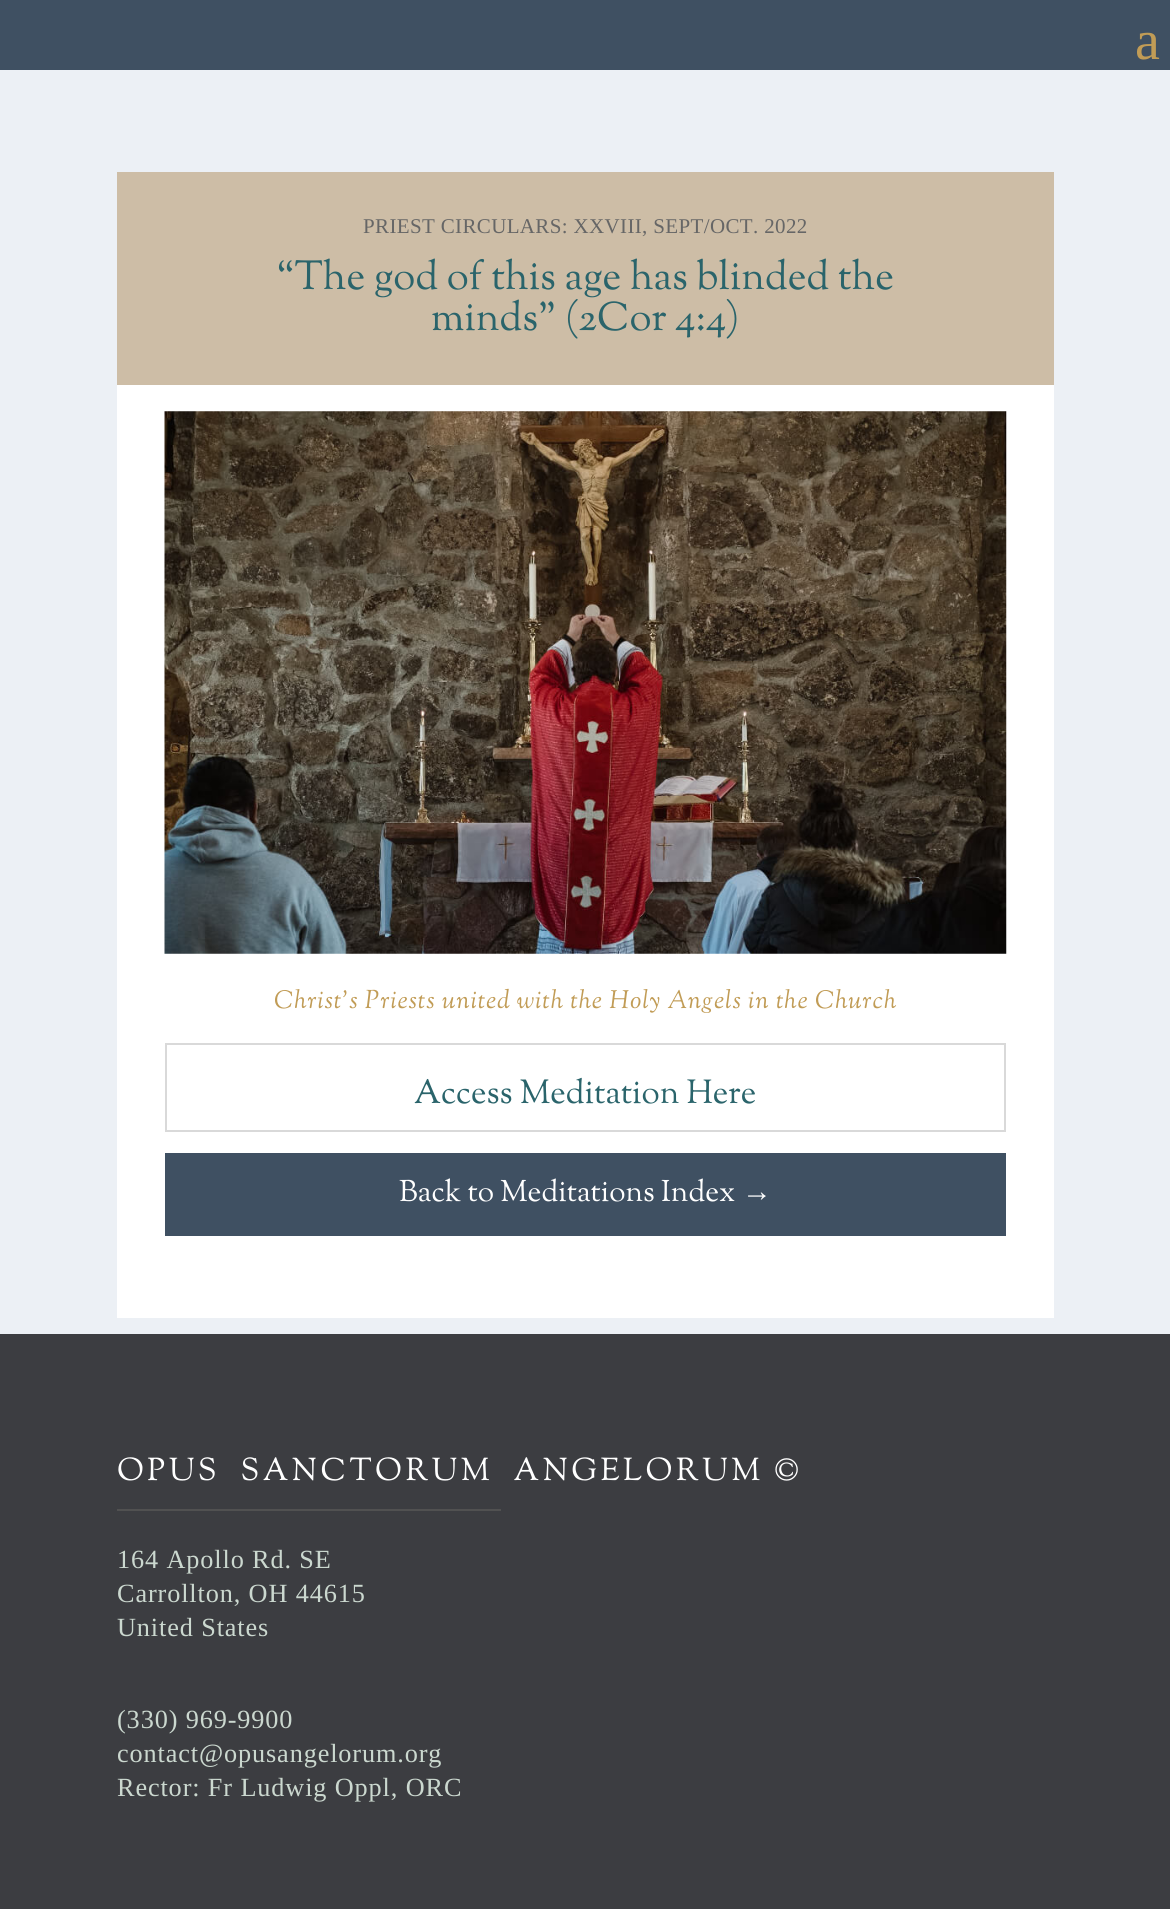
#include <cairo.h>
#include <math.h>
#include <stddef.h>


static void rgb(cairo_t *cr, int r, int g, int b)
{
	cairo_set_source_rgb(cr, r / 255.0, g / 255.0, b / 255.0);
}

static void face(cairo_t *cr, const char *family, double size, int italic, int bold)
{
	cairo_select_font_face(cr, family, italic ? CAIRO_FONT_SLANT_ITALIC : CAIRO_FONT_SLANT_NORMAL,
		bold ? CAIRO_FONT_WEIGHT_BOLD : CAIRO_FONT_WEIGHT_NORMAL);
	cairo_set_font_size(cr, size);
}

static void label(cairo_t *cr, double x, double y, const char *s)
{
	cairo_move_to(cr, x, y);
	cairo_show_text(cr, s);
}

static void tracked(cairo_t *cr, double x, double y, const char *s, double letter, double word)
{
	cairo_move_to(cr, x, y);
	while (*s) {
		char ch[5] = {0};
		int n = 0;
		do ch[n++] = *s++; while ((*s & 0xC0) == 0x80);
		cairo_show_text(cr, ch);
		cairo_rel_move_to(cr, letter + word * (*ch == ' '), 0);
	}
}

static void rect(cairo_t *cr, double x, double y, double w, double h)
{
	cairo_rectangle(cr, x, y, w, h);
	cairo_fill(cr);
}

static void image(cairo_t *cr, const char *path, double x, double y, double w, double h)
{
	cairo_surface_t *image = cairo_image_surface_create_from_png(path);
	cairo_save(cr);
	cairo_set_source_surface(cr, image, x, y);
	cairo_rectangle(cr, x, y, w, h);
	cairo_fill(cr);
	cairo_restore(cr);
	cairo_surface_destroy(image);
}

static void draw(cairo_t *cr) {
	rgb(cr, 236, 240, 245);
	cairo_paint(cr);
	rgb(cr, 63, 80, 98);
	rect(cr, 0, 0, 1170, 70);
	face(cr, "Liberation Serif", 56, 0, 0);
	rgb(cr, 193, 156, 86);
	label(cr, 1135, 59, "a");
	rgb(cr, 205, 189, 166);
	rect(cr, 117, 172, 937, 213);
	face(cr, "Liberation Serif", 21, 0, 0);
	rgb(cr, 102, 102, 102);
	tracked(cr, 363, 233, "PRIEST CIRCULARS: XXVIII, SEPT/OCT. 2022", 0.35, 0);
	face(cr, "Sorts Mill Goudy", 40.25, 0, 0);
	rgb(cr, 42, 100, 107);
	label(cr, 276, 289, "“The god of this age has blinded the");
	label(cr, 431, 330, "minds” (2Cor 4:4)");
	rgb(cr, 255, 255, 255);
	rect(cr, 117, 385, 937, 933);
	image(cr, "image0.png", 164, 411, 843, 543);
	face(cr, "Sorts Mill Goudy", 25.4, 1, 0);
	rgb(cr, 193, 156, 86);
	tracked(cr, 274, 1008, "Christ’s Priests united with the Holy Angels in the Church", 0.88, 0);
	cairo_rectangle(cr, 166, 1044, 839, 87);
	rgb(cr, 217, 217, 217);
	cairo_stroke(cr);
	face(cr, "Sorts Mill Goudy", 33.25, 0, 0);
	rgb(cr, 42, 100, 107);
	label(cr, 414, 1103, "Access Meditation Here");
	rgb(cr, 63, 80, 98);
	rect(cr, 165, 1153, 841, 83);
	face(cr, "Sorts Mill Goudy", 29.75, 0, 0);
	rgb(cr, 255, 255, 255);
	label(cr, 399, 1201, "Back to Meditations Index");
	face(cr, "Liberation Serif", 29.75, 0, 0);
	label(cr, 742, 1201, "→");
	rgb(cr, 60, 61, 65);
	rect(cr, 0, 1334, 1170, 575);
	face(cr, "Sorts Mill Goudy", 31.5, 0, 0);
	rgb(cr, 255, 255, 255);
	tracked(cr, 117, 1480, "OPUS  SANCTORUM  ANGELORUM ©", 3.5, 0);
	rgb(cr, 81, 81, 81);
	rect(cr, 117, 1509, 384, 2);
	face(cr, "Liberation Serif", 26.25, 0, 0);
	rgb(cr, 203, 216, 207);
	tracked(cr, 117, 1568, "164 Apollo Rd. SE", 0.88, 0);
	tracked(cr, 117, 1602, "Carrollton, OH 44615", 0.88, 0);
	tracked(cr, 117, 1636, "United States", 0.88, 0);
	tracked(cr, 117, 1728, "(330) 969-9900", 0.88, 0);
	tracked(cr, 117, 1762, "contact@opusangelorum.org", 0.88, 0);
	tracked(cr, 117, 1796, "Rector: Fr Ludwig Oppl, ORC", 0.88, 0);
}

int main(void) {
	cairo_surface_t *surface = cairo_image_surface_create(CAIRO_FORMAT_RGB24, 1170, 1909);
	cairo_t *cr = cairo_create(surface);
	cairo_font_options_t *options = cairo_font_options_create();
	cairo_font_options_set_hint_metrics(options, CAIRO_HINT_METRICS_OFF);
	cairo_font_options_set_hint_style(options, CAIRO_HINT_STYLE_NONE);
	cairo_set_font_options(cr, options);
	cairo_set_miter_limit(cr, 4);
	draw(cr);
	cairo_surface_write_to_png(surface, "render.png");
	cairo_font_options_destroy(options);
	cairo_destroy(cr);
	cairo_surface_destroy(surface);
	return 0;
}
